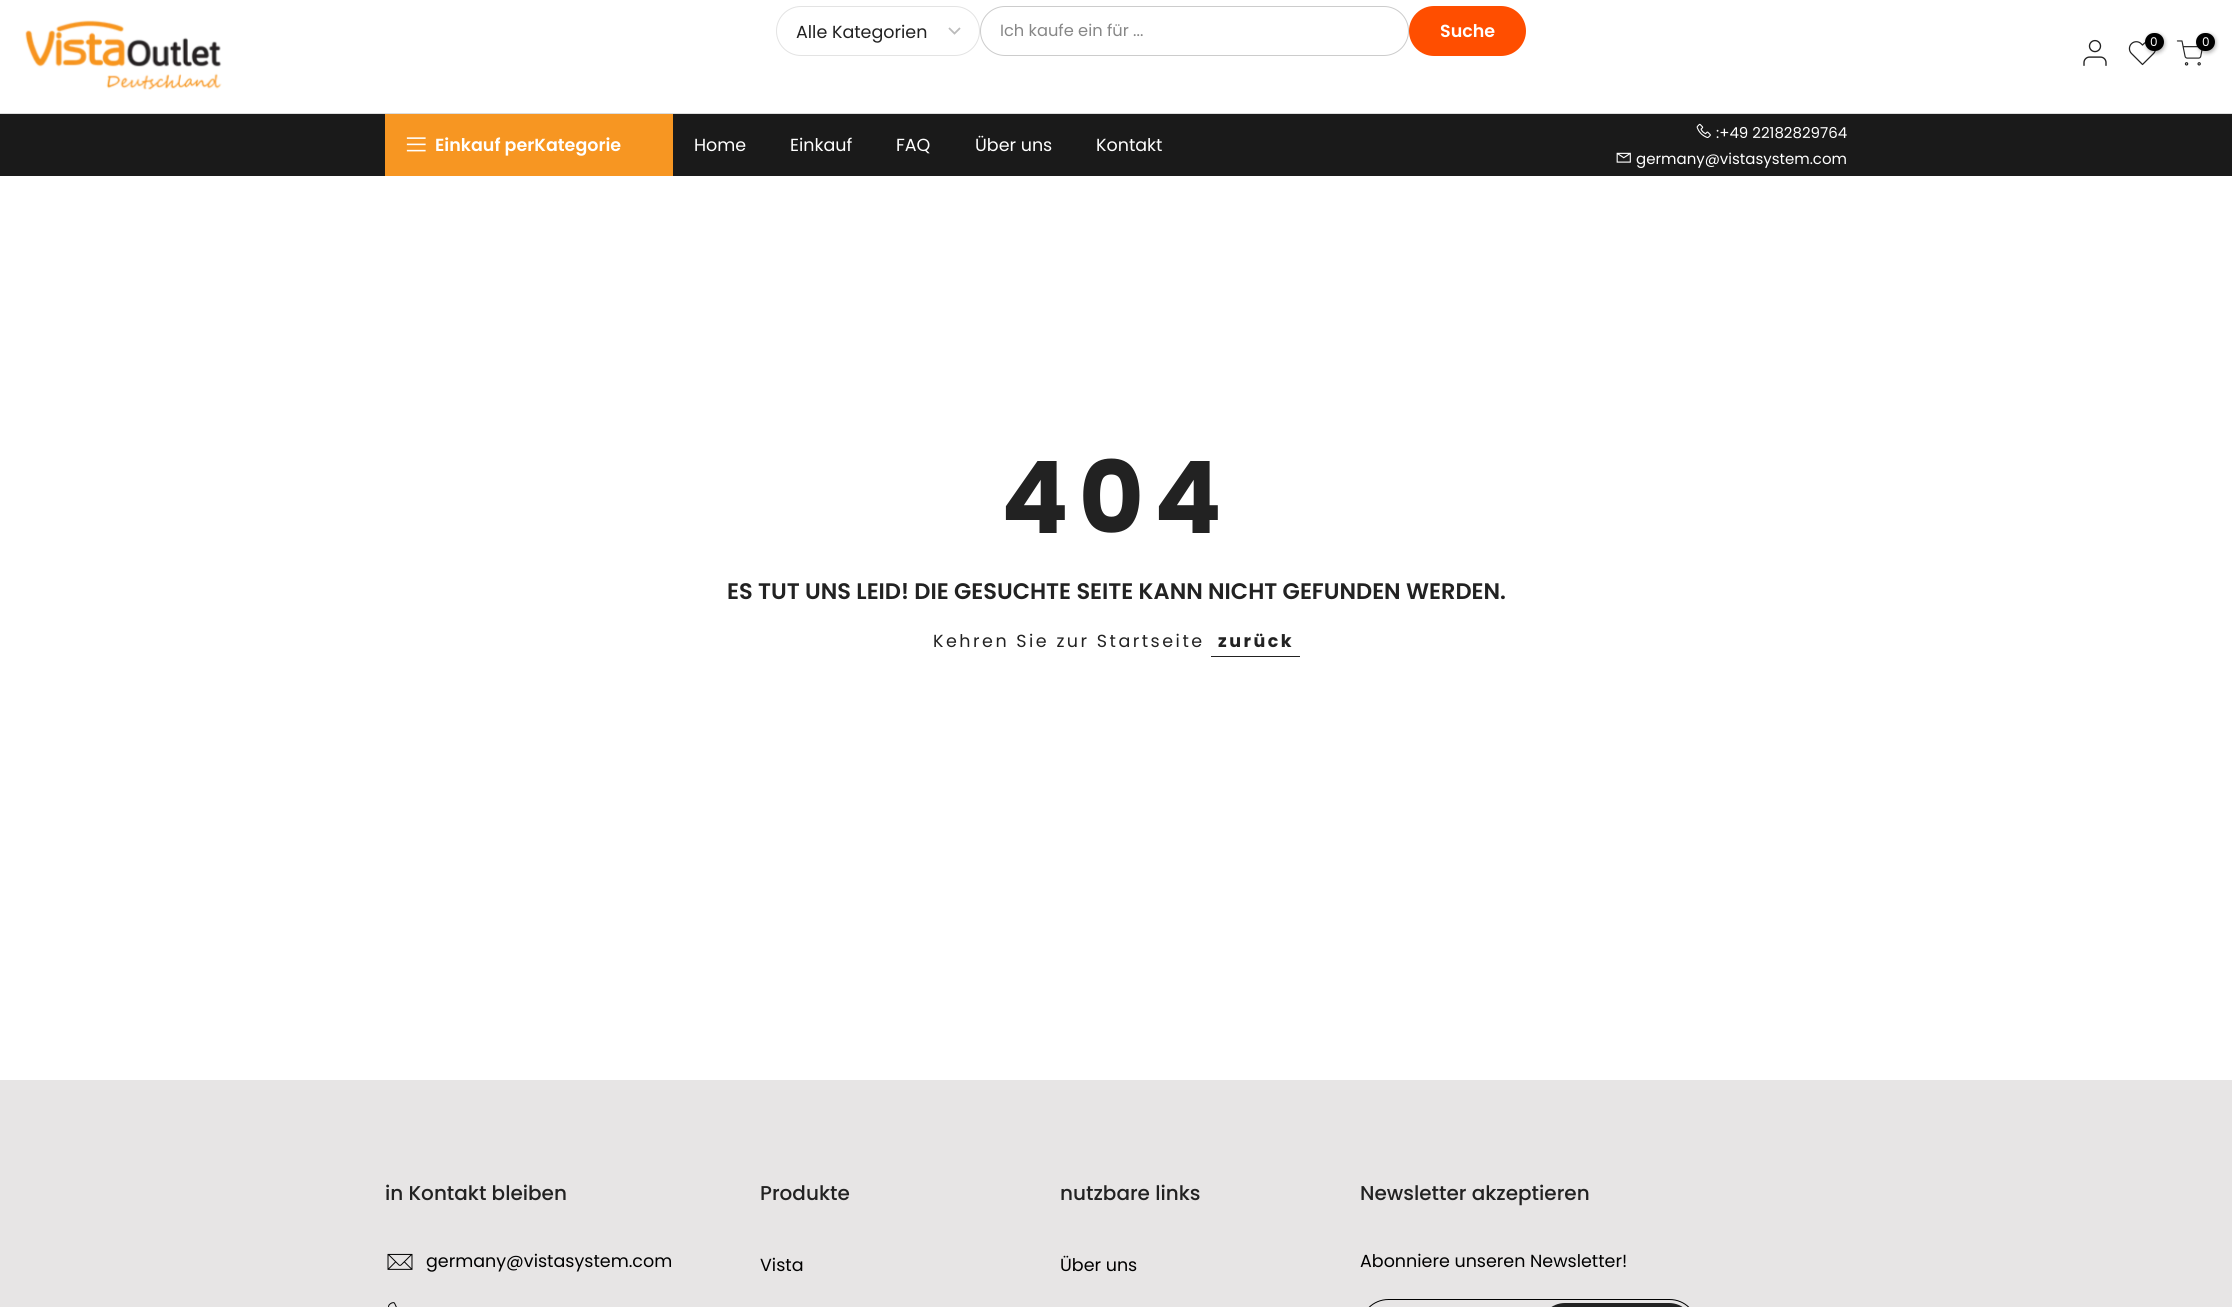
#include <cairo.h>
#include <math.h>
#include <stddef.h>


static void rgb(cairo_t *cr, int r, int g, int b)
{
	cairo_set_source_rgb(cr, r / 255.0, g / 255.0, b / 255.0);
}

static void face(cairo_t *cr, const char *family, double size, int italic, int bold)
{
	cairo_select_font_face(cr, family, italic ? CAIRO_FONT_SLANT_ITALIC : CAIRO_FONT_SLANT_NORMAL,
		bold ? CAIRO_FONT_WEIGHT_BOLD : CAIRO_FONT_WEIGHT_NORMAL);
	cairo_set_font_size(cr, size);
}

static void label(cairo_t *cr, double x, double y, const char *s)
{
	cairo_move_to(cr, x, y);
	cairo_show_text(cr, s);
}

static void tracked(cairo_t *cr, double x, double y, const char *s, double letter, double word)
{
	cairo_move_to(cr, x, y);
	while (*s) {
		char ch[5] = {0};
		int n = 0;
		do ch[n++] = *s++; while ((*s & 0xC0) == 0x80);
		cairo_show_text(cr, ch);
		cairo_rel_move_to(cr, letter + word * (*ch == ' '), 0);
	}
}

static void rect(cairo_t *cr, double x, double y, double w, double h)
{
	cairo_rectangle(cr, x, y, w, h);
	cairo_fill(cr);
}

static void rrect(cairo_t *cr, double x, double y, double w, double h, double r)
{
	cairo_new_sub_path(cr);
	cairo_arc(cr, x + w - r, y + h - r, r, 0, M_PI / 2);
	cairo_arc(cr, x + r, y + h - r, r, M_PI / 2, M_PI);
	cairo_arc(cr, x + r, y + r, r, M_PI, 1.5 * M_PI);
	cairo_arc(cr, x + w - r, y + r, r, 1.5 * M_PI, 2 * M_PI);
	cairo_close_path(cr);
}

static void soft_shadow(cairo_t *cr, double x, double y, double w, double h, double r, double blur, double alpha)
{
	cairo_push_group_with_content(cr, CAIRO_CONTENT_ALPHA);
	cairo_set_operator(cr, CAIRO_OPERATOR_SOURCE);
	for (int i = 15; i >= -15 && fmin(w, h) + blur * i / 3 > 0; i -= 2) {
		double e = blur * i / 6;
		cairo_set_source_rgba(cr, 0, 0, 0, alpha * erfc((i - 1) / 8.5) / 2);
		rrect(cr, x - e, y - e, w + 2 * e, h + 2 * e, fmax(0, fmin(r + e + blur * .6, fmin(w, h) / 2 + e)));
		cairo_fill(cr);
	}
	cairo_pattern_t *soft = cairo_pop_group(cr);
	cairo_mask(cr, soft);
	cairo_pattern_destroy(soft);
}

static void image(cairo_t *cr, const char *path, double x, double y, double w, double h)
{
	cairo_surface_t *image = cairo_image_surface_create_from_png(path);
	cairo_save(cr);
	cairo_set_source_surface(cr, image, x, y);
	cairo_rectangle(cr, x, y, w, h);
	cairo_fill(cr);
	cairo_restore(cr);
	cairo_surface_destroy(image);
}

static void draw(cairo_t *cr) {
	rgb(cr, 255, 255, 255);
	cairo_paint(cr);
	image(cr, "image0.png", 25, 20, 197, 70);
	cairo_new_path(cr);
	cairo_move_to(cr, 949, 28);
	cairo_line_to(cr, 954.5, 33.5);
	cairo_line_to(cr, 960, 28);
	rgb(cr, 187, 187, 187);
	cairo_set_line_width(cr, 1.8);
	cairo_stroke(cr);
	rrect(cr, 776.5, 6.5, 203, 49, 24.5);
	rgb(cr, 227, 227, 227);
	cairo_set_line_width(cr, 1);
	cairo_stroke(cr);
	face(cr, "Poppins", 17.5, 0, 0);
	rgb(cr, 34, 34, 34);
	label(cr, 796, 38, "Alle Kategorien");
	rrect(cr, 980.5, 6.5, 428, 49, 24.5);
	rgb(cr, 204, 204, 204);
	cairo_stroke(cr);
	face(cr, "Poppins", 16.25, 0, 0);
	rgb(cr, 135, 135, 135);
	label(cr, 1000, 36, "Ich kaufe ein für ...");
	rgb(cr, 255, 78, 0);
	rrect(cr, 1409, 6, 117, 50, 25);
	cairo_fill(cr);
	face(cr, "Poppins SemiBold", 17.5, 0, 0);
	rgb(cr, 255, 255, 255);
	label(cr, 1440, 37, "Suche");
	image(cr, "image1.png", 2083, 39, 24, 27);
	image(cr, "image2.png", 2128, 41, 28, 25);
	rgb(cr, 0, 0, 0);
	soft_shadow(cr, 2146, 34, 19, 19, 9.5, 2, 0.3);
	rgb(cr, 0, 0, 0);
	rrect(cr, 2145, 33, 19, 18, 9);
	cairo_fill(cr);
	face(cr, "Poppins", 12, 0, 0);
	rgb(cr, 255, 255, 255);
	label(cr, 2150, 46, "0");
	image(cr, "image3.png", 2176, 40, 27, 26);
	rgb(cr, 0, 0, 0);
	soft_shadow(cr, 2198, 34, 18, 19, 9, 2, 0.3);
	rgb(cr, 0, 0, 0);
	rrect(cr, 2196, 33, 19, 18, 9);
	cairo_fill(cr);
	rgb(cr, 255, 255, 255);
	label(cr, 2202, 46, "0");
	rgb(cr, 26, 26, 26);
	rect(cr, 0, 114, 2232, 62);
	rgb(cr, 221, 221, 221);
	rect(cr, 0, 113, 2232, 1);
	rgb(cr, 247, 150, 34);
	rect(cr, 385, 114, 288, 62);
	image(cr, "image4.png", 406, 137, 20, 15);
	face(cr, "Poppins SemiBold", 17.5, 0, 0);
	rgb(cr, 255, 255, 255);
	label(cr, 435, 151, "Einkauf perKategorie");
	face(cr, "Poppins", 17.5, 0, 0);
	label(cr, 694, 151, "Home");
	label(cr, 790, 151, "Einkauf");
	label(cr, 896, 151, "FAQ");
	label(cr, 975, 151, "Über uns");
	label(cr, 1096, 151, "Kontakt");
	image(cr, "image5.png", 1696, 123, 15, 15);
	face(cr, "Poppins", 15, 0, 0);
	label(cr, 1716, 138, ":+49 22182829764");
	image(cr, "image6.png", 1616, 152, 15, 11);
	label(cr, 1636, 164, "germany@vistasystem.com");
	face(cr, "Poppins", 100, 0, 1);
	rgb(cr, 34, 34, 34);
	tracked(cr, 1001, 533, "404", 10, 0);
	face(cr, "Poppins SemiBold", 22.5, 0, 0);
	label(cr, 727, 599, "ES TUT UNS LEID! DIE GESUCHTE SEITE KANN NICHT GEFUNDEN WERDEN.");
	face(cr, "Poppins", 17.5, 0, 0);
	tracked(cr, 933, 647, "Kehren Sie zur Startseite", 2.5, 0);
	face(cr, "Poppins", 17.5, 0, 1);
	tracked(cr, 1218, 647, "zurück", 2.5, 0);
	rect(cr, 1211, 656, 89, 1);
	rgb(cr, 231, 229, 229);
	rect(cr, 0, 1080, 2232, 227);
	face(cr, "Poppins Medium", 20, 0, 0);
	rgb(cr, 34, 34, 34);
	label(cr, 385, 1200, "in Kontakt bleiben");
	image(cr, "image7.png", 387, 1253, 26, 17);
	face(cr, "Poppins", 17.5, 0, 0);
	rgb(cr, 0, 0, 0);
	label(cr, 426, 1267, "germany@vistasystem.com");
	image(cr, "image8.png", 388, 1302, 9, 5);
	face(cr, "Poppins Medium", 20, 0, 0);
	rgb(cr, 34, 34, 34);
	label(cr, 760, 1200, "Produkte");
	face(cr, "Poppins", 17.5, 0, 0);
	rgb(cr, 0, 0, 0);
	label(cr, 760, 1271, "Vista");
	face(cr, "Poppins Medium", 20, 0, 0);
	rgb(cr, 34, 34, 34);
	label(cr, 1060, 1200, "nutzbare links");
	face(cr, "Poppins", 17.5, 0, 0);
	rgb(cr, 0, 0, 0);
	label(cr, 1060, 1271, "Über uns");
	face(cr, "Poppins Medium", 20, 0, 0);
	rgb(cr, 34, 34, 34);
	label(cr, 1360, 1200, "Newsletter akzeptieren");
	face(cr, "Poppins", 17.5, 0, 0);
	rgb(cr, 0, 0, 0);
	label(cr, 1360, 1267, "Abonniere unseren Newsletter!");
	rrect(cr, 1360.5, 1299.5, 337, 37, 28);
	cairo_stroke(cr);
	rgb(cr, 34, 34, 34);
	rrect(cr, 1540, 1303, 154, 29, 25);
	cairo_fill(cr);
}

int main(void) {
	cairo_surface_t *surface = cairo_image_surface_create(CAIRO_FORMAT_RGB24, 2232, 1307);
	cairo_t *cr = cairo_create(surface);
	cairo_font_options_t *options = cairo_font_options_create();
	cairo_font_options_set_hint_metrics(options, CAIRO_HINT_METRICS_OFF);
	cairo_font_options_set_hint_style(options, CAIRO_HINT_STYLE_NONE);
	cairo_set_font_options(cr, options);
	cairo_set_miter_limit(cr, 4);
	draw(cr);
	cairo_surface_write_to_png(surface, "render.png");
	cairo_font_options_destroy(options);
	cairo_destroy(cr);
	cairo_surface_destroy(surface);
	return 0;
}
